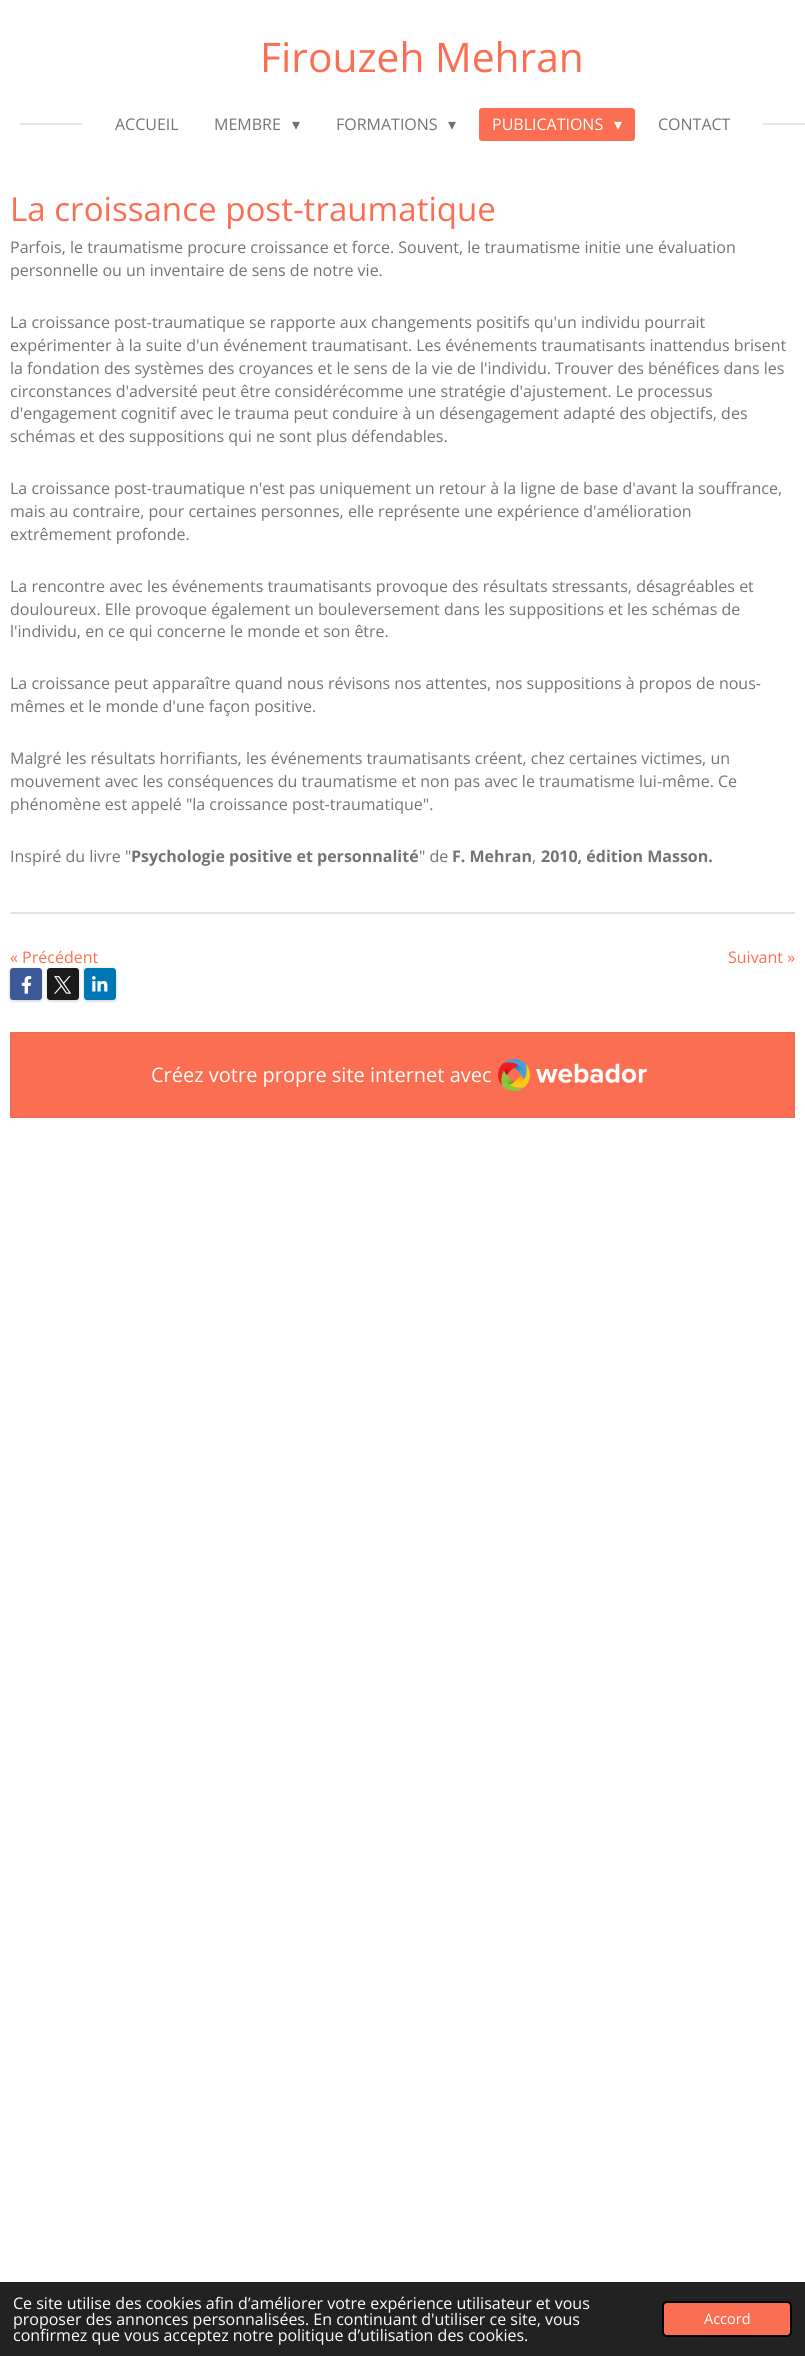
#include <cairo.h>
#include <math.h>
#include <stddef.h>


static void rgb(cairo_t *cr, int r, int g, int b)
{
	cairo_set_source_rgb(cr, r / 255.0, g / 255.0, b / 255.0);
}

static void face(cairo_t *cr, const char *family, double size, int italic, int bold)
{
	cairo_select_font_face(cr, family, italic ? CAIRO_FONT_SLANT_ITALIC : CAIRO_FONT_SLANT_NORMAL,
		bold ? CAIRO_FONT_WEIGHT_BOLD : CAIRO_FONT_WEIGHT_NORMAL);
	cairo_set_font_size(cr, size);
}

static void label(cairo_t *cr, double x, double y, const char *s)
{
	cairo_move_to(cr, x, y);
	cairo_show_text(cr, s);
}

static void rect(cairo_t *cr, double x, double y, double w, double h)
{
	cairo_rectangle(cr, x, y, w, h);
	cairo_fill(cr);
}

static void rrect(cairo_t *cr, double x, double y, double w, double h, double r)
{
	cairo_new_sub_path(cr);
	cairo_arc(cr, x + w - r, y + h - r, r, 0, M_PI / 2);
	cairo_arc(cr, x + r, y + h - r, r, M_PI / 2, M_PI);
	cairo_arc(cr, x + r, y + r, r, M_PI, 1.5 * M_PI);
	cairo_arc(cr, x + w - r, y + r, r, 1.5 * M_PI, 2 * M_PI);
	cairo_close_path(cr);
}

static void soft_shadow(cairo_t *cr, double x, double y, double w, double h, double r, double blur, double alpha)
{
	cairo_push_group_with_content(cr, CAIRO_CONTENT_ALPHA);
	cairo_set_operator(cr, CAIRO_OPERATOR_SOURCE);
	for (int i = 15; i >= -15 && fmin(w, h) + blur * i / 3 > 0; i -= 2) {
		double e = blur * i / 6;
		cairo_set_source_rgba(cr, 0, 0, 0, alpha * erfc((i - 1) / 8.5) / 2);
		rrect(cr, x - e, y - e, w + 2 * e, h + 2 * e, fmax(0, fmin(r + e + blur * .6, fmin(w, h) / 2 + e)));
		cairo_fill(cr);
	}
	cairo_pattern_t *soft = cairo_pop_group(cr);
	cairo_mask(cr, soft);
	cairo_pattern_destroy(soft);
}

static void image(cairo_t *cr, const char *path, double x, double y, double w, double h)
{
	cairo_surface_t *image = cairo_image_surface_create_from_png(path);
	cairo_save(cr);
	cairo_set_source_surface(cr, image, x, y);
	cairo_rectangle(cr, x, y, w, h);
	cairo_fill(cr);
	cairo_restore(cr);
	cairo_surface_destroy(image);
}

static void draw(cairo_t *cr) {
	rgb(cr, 255, 255, 255);
	cairo_paint(cr);
	face(cr, "Open Sans", 40.75, 0, 0);
	rgb(cr, 252, 110, 81);
	label(cr, 260, 72, "Firouzeh Mehran");
	rgb(cr, 230, 230, 230);
	rect(cr, 20, 123, 62, 2);
	face(cr, "Open Sans", 16, 0, 0);
	rgb(cr, 115, 115, 115);
	label(cr, 115, 130, "ACCUEIL");
	label(cr, 214, 130, "MEMBRE");
	face(cr, "DejaVu Sans", 16, 0, 0);
	label(cr, 292, 130, "▾");
	face(cr, "Open Sans", 16, 0, 0);
	label(cr, 336, 130, "FORMATIONS");
	face(cr, "DejaVu Sans", 16, 0, 0);
	label(cr, 448, 130, "▾");
	rgb(cr, 252, 110, 81);
	rrect(cr, 479, 108, 156, 33, 3);
	cairo_fill(cr);
	face(cr, "Open Sans", 16, 0, 0);
	rgb(cr, 255, 255, 255);
	label(cr, 492, 130, "PUBLICATIONS");
	face(cr, "DejaVu Sans", 16, 0, 0);
	label(cr, 614, 130, "▾");
	face(cr, "Open Sans", 16, 0, 0);
	rgb(cr, 115, 115, 115);
	label(cr, 658, 130, "CONTACT");
	rgb(cr, 230, 230, 230);
	rect(cr, 763, 123, 42, 2);
	face(cr, "Open Sans", 33.1, 0, 0);
	rgb(cr, 252, 110, 81);
	label(cr, 10, 221, "La croissance post-traumatique");
	face(cr, "Open Sans", 16, 0, 0);
	rgb(cr, 115, 115, 115);
	label(cr, 10, 253, "Parfois, le traumatisme procure croissance et force. Souvent, le traumatisme initie une évaluation");
	label(cr, 10, 276, "personnelle ou un inventaire de sens de notre vie.");
	label(cr, 10, 328, "La croissance post-traumatique se rapporte aux changements positifs qu'un individu pourrait");
	label(cr, 10, 351, "expérimenter à la suite d'un événement traumatisant. Les événements traumatisants inattendus brisent");
	label(cr, 10, 374, "la fondation des systèmes des croyances et le sens de la vie de l'individu. Trouver des bénéfices dans les");
	label(cr, 10, 397, "circonstances d'adversité peut être considérécomme une stratégie d'ajustement. Le processus");
	label(cr, 10, 419, "d'engagement cognitif avec le trauma peut conduire à un désengagement adapté des objectifs, des");
	label(cr, 10, 442, "schémas et des suppositions qui ne sont plus défendables.");
	label(cr, 10, 494, "La croissance post-traumatique n'est pas uniquement un retour à la ligne de base d'avant la souffrance,");
	label(cr, 10, 517, "mais au contraire, pour certaines personnes, elle représente une expérience d'amélioration");
	label(cr, 10, 540, "extrêmement profonde.");
	label(cr, 10, 592, "La rencontre avec les événements traumatisants provoque des résultats stressants, désagréables et");
	label(cr, 10, 615, "douloureux. Elle provoque également un bouleversement dans les suppositions et les schémas de");
	label(cr, 10, 637, "l'individu, en ce qui concerne le monde et son être.");
	label(cr, 10, 689, "La croissance peut apparaître quand nous révisons nos attentes, nos suppositions à propos de nous-");
	label(cr, 10, 712, "mêmes et le monde d'une façon positive.");
	label(cr, 10, 764, "Malgré les résultats horrifiants, les événements traumatisants créent, chez certaines victimes, un");
	label(cr, 10, 787, "mouvement avec les conséquences du traumatisme et non pas avec le traumatisme lui-même. Ce");
	label(cr, 10, 810, "phénomène est appelé \"la croissance post-traumatique\".");
	label(cr, 10, 862, "Inspiré du livre \"");
	face(cr, "Open Sans", 16, 0, 1);
	label(cr, 131, 862, "Psychologie positive et personnalité");
	face(cr, "Open Sans", 16, 0, 0);
	label(cr, 419, 862, "\" de");
	face(cr, "Open Sans", 16, 0, 1);
	label(cr, 452, 862, "F. Mehran");
	face(cr, "Open Sans", 16, 0, 0);
	label(cr, 532, 862, ",");
	face(cr, "Open Sans", 16, 0, 1);
	label(cr, 541, 862, "2010, édition Masson.");
	rgb(cr, 227, 227, 227);
	rect(cr, 10, 912, 785, 2);
	face(cr, "Open Sans", 16, 0, 0);
	rgb(cr, 252, 110, 81);
	label(cr, 10, 963, "« Précédent");
	label(cr, 728, 963, "Suivant »");
	rgb(cr, 0, 0, 0);
	soft_shadow(cr, 10, 969, 32, 32, 3, 1.5, 0.2);
	rgb(cr, 59, 89, 152);
	rrect(cr, 10, 968, 32, 32, 3);
	cairo_fill(cr);
	image(cr, "image0.png", 21, 976, 11, 18);
	rgb(cr, 0, 0, 0);
	soft_shadow(cr, 47, 969, 32, 32, 3, 1.5, 0.2);
	rgb(cr, 26, 26, 26);
	rrect(cr, 47, 968, 32, 32, 3);
	cairo_fill(cr);
	image(cr, "image1.png", 54, 976, 18, 18);
	rgb(cr, 0, 0, 0);
	soft_shadow(cr, 84, 969, 32, 32, 3, 1.5, 0.2);
	rgb(cr, 0, 119, 181);
	rrect(cr, 84, 968, 32, 32, 3);
	cairo_fill(cr);
	image(cr, "image2.png", 92, 976, 16, 16);
	rgb(cr, 252, 110, 81);
	rect(cr, 10, 1032, 785, 86);
	rrect(cr, 10.5, 1032.5, 784, 85, 2.5);
	rgb(cr, 225, 111, 88);
	cairo_set_line_width(cr, 1);
	cairo_stroke(cr);
	face(cr, "Open Sans", 20, 0, 0);
	rgb(cr, 255, 255, 255);
	label(cr, 151, 1082, "Créez votre propre site internet avec");
	image(cr, "image3.png", 498, 1059, 149, 32);
	rgb(cr, 34, 34, 34);
	rect(cr, 0, 2282, 805, 74);
	face(cr, "Open Sans", 16, 0, 0);
	rgb(cr, 255, 255, 255);
	label(cr, 13, 2309, "Ce site utilise des cookies afin d’améliorer votre expérience utilisateur et vous");
	label(cr, 13, 2325, "proposer des annonces personnalisées. En continuant d'utiliser ce site, vous");
	label(cr, 13, 2341, "confirmez que vous acceptez notre politique d’utilisation des cookies.");
	rgb(cr, 252, 110, 81);
	rrect(cr, 663, 2302, 128, 34, 4);
	cairo_fill_preserve(cr);
	rgb(cr, 0, 0, 0);
	cairo_set_line_width(cr, 2);
	cairo_stroke(cr);
	face(cr, "Open Sans", 14.5, 0, 0);
	rgb(cr, 255, 255, 255);
	label(cr, 704, 2324, "Accord");
}

int main(void) {
	cairo_surface_t *surface = cairo_image_surface_create(CAIRO_FORMAT_RGB24, 805, 2356);
	cairo_t *cr = cairo_create(surface);
	cairo_font_options_t *options = cairo_font_options_create();
	cairo_font_options_set_hint_metrics(options, CAIRO_HINT_METRICS_OFF);
	cairo_font_options_set_hint_style(options, CAIRO_HINT_STYLE_NONE);
	cairo_set_font_options(cr, options);
	cairo_set_miter_limit(cr, 4);
	draw(cr);
	cairo_surface_write_to_png(surface, "render.png");
	cairo_font_options_destroy(options);
	cairo_destroy(cr);
	cairo_surface_destroy(surface);
	return 0;
}
